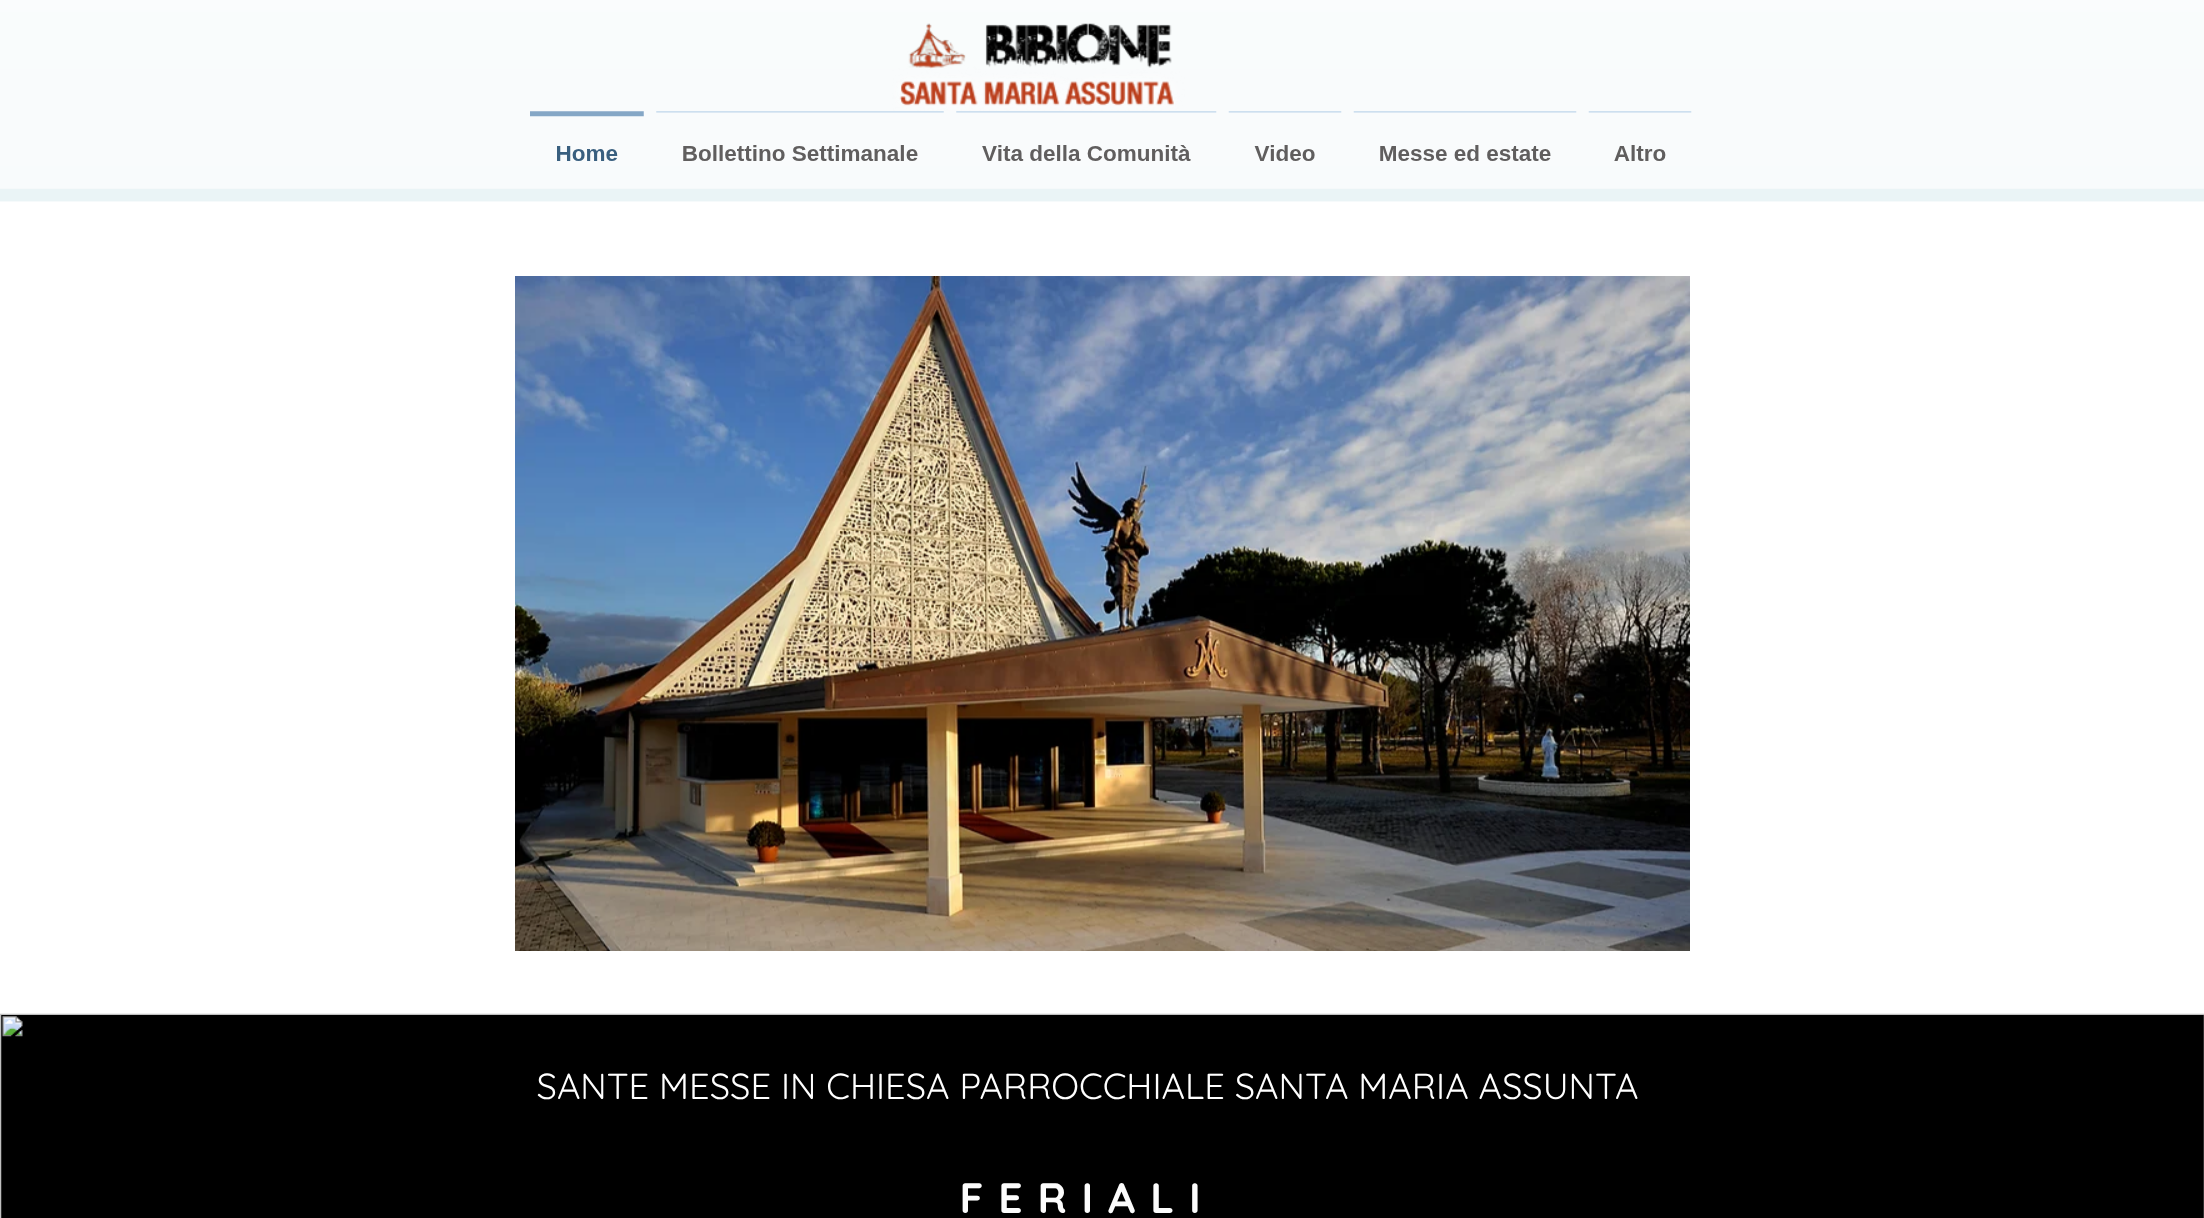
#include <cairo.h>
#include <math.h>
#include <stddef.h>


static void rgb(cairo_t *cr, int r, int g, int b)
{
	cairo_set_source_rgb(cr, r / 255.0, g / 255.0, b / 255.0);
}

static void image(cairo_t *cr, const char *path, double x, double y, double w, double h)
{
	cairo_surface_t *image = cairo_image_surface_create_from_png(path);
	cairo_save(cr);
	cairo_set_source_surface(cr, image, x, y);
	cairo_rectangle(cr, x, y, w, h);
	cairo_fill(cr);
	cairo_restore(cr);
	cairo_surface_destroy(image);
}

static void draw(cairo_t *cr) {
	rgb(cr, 255, 255, 255);
	cairo_paint(cr);
	image(cr, "image0.png", 0, 0, 2204, 1218);
}

int main(void) {
	cairo_surface_t *surface = cairo_image_surface_create(CAIRO_FORMAT_RGB24, 2204, 1218);
	cairo_t *cr = cairo_create(surface);
	cairo_font_options_t *options = cairo_font_options_create();
	cairo_font_options_set_hint_metrics(options, CAIRO_HINT_METRICS_OFF);
	cairo_font_options_set_hint_style(options, CAIRO_HINT_STYLE_NONE);
	cairo_set_font_options(cr, options);
	cairo_set_miter_limit(cr, 4);
	draw(cr);
	cairo_surface_write_to_png(surface, "render.png");
	cairo_font_options_destroy(options);
	cairo_destroy(cr);
	cairo_surface_destroy(surface);
	return 0;
}
